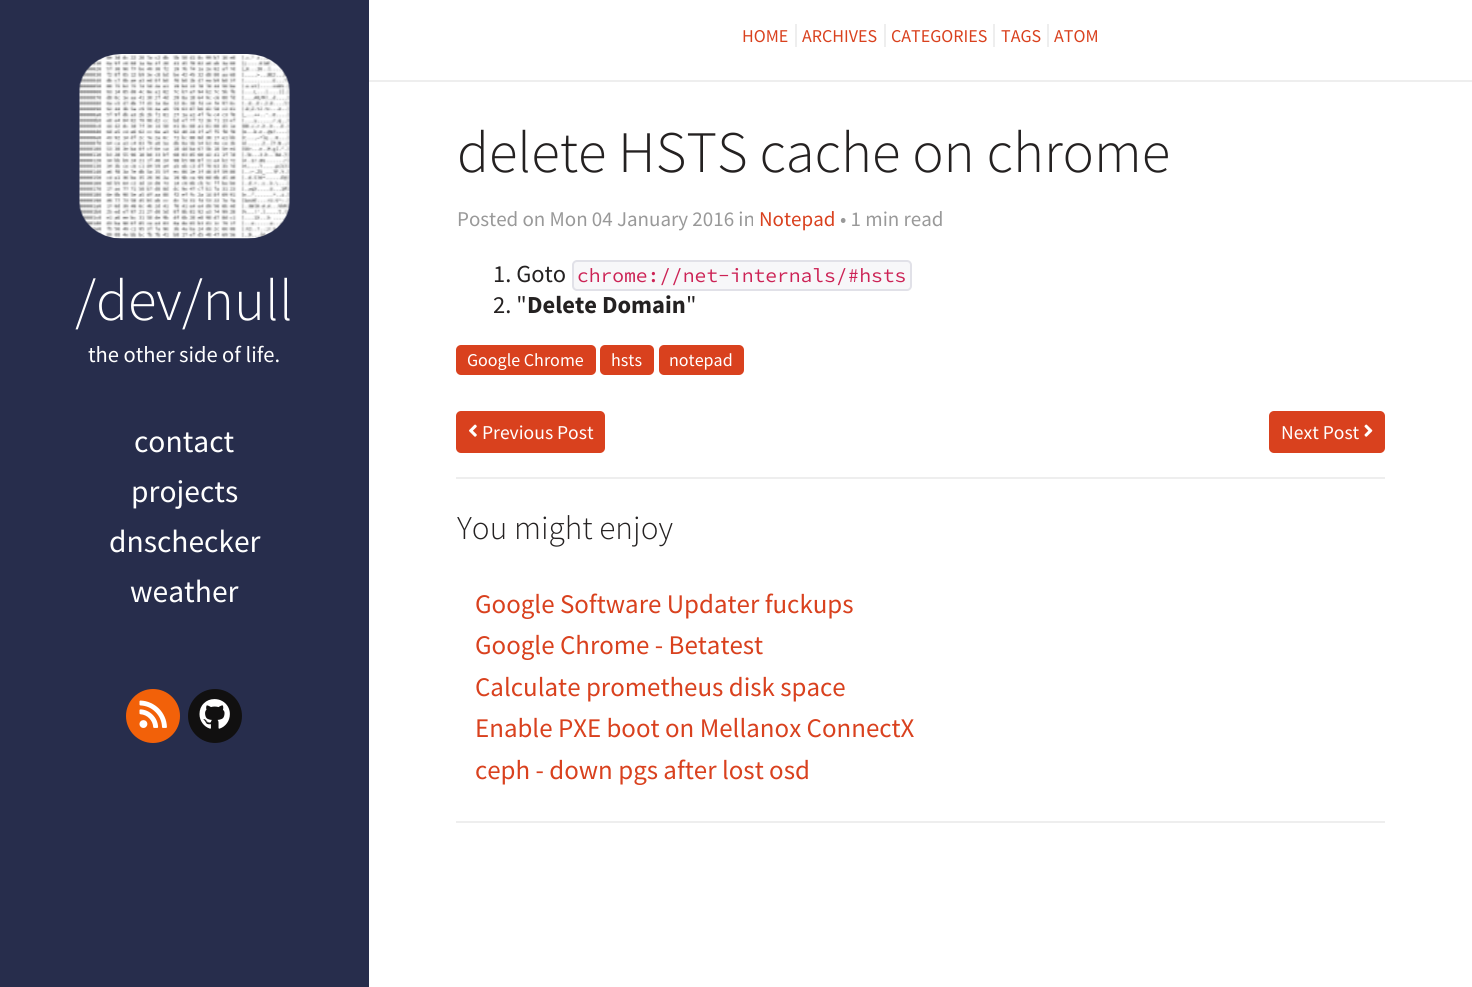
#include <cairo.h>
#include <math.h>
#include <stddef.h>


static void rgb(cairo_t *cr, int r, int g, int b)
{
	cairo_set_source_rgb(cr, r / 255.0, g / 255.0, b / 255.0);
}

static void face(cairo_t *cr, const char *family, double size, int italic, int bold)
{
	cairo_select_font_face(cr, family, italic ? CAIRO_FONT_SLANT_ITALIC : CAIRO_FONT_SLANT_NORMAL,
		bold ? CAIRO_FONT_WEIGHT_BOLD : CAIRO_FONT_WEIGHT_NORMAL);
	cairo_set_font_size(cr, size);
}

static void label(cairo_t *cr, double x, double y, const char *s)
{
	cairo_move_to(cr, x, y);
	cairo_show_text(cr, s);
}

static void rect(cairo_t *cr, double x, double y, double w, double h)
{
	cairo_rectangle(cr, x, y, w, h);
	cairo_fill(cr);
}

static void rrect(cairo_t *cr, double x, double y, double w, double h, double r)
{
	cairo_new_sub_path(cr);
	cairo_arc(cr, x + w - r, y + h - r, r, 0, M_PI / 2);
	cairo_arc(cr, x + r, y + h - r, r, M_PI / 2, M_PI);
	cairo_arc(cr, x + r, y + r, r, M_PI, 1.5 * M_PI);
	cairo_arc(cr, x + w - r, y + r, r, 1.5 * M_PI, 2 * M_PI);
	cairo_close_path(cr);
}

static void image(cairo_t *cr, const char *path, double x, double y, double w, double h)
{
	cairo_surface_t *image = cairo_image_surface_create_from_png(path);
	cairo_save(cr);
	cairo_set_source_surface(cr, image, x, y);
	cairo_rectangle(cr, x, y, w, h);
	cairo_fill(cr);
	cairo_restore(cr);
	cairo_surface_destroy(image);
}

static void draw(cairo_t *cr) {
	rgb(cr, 255, 255, 255);
	cairo_paint(cr);
	rgb(cr, 39, 45, 76);
	rect(cr, 0, 0, 369, 987);
	image(cr, "image0.png", 79, 54, 211, 185);
	face(cr, "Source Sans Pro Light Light", 58.75, 0, 0);
	rgb(cr, 255, 255, 255);
	label(cr, 75, 320, "/dev/null");
	face(cr, "Source Sans Pro", 22.5, 0, 0);
	label(cr, 88, 362, "the other side of life.");
	face(cr, "Source Sans Pro", 31.5, 0, 0);
	label(cr, 134, 452, "contact");
	label(cr, 131, 502, "projects");
	label(cr, 109, 552, "dnschecker");
	label(cr, 130, 602, "weather");
	rgb(cr, 242, 97, 9);
	cairo_new_path(cr);
	cairo_arc(cr, 153, 716, 27, 0, 2 * M_PI);
	cairo_fill(cr);
	image(cr, "image1.png", 139, 700, 28, 28);
	rgb(cr, 17, 16, 16);
	cairo_arc(cr, 215, 716, 27, 0, 2 * M_PI);
	cairo_fill(cr);
	image(cr, "image2.png", 199, 699, 31, 30);
	rgb(cr, 238, 238, 238);
	rect(cr, 369, 80, 1103, 2);
	face(cr, "Source Sans Pro", 18, 0, 0);
	rgb(cr, 217, 65, 30);
	label(cr, 742, 42, "HOME");
	rgb(cr, 238, 238, 238);
	rect(cr, 795, 24, 2, 23);
	rgb(cr, 217, 65, 30);
	label(cr, 802, 42, "ARCHIVES");
	rgb(cr, 238, 238, 238);
	rect(cr, 884, 24, 2, 23);
	rgb(cr, 217, 65, 30);
	label(cr, 891, 42, "CATEGORIES");
	rgb(cr, 238, 238, 238);
	rect(cr, 993, 24, 2, 23);
	rgb(cr, 217, 65, 30);
	label(cr, 1001, 42, "TAGS");
	rgb(cr, 238, 238, 238);
	rect(cr, 1047, 24, 2, 23);
	rgb(cr, 217, 65, 30);
	label(cr, 1054, 42, "ATOM");
	face(cr, "Source Sans Pro Light Light", 58.75, 0, 0);
	rgb(cr, 36, 33, 33);
	label(cr, 457, 172, "delete HSTS cache on chrome");
	face(cr, "Source Sans Pro", 21, 0, 0);
	rgb(cr, 153, 153, 153);
	label(cr, 457, 226, "Posted on Mon 04 January 2016 in");
	rgb(cr, 217, 65, 30);
	label(cr, 759, 226, "Notepad");
	rgb(cr, 153, 153, 153);
	label(cr, 840, 226, "• 1 min read");
	face(cr, "Source Sans Pro", 24.5, 0, 0);
	rgb(cr, 36, 33, 33);
	label(cr, 493, 282, "1. Goto");
	rgb(cr, 247, 247, 249);
	rrect(cr, 573, 261, 338, 29, 4);
	cairo_fill_preserve(cr);
	rgb(cr, 225, 225, 232);
	cairo_stroke(cr);
	face(cr, "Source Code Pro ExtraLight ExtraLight", 19.6, 0, 0);
	rgb(cr, 204, 34, 85);
	label(cr, 577, 282, "chrome://net-internals/#hsts");
	face(cr, "Source Sans Pro", 24.5, 0, 0);
	rgb(cr, 36, 33, 33);
	label(cr, 493, 313, "2. \"");
	face(cr, "Source Sans Pro", 24.5, 0, 1);
	label(cr, 527, 313, "Delete Domain");
	face(cr, "Source Sans Pro", 24.5, 0, 0);
	label(cr, 686, 313, "\"");
	rgb(cr, 217, 65, 30);
	rrect(cr, 456, 345, 140, 30, 5);
	cairo_fill(cr);
	face(cr, "Source Sans Pro", 18, 0, 0);
	rgb(cr, 255, 255, 255);
	label(cr, 467, 366, "Google Chrome");
	rgb(cr, 217, 65, 30);
	rrect(cr, 600, 345, 54, 30, 5);
	cairo_fill(cr);
	rgb(cr, 255, 255, 255);
	label(cr, 611, 366, "hsts");
	rgb(cr, 217, 65, 30);
	rrect(cr, 659, 345, 85, 30, 5);
	cairo_fill(cr);
	rgb(cr, 255, 255, 255);
	label(cr, 669, 366, "notepad");
	rgb(cr, 217, 65, 30);
	rrect(cr, 456, 411, 149, 42, 5);
	cairo_fill(cr);
	image(cr, "image3.png", 469, 424, 8, 13);
	face(cr, "Source Sans Pro", 19.6, 0, 0);
	rgb(cr, 255, 255, 255);
	label(cr, 482, 439, "Previous Post");
	rgb(cr, 217, 65, 30);
	rrect(cr, 1269, 411, 116, 42, 5);
	cairo_fill(cr);
	rgb(cr, 255, 255, 255);
	label(cr, 1281, 439, "Next Post");
	image(cr, "image4.png", 1364, 424, 9, 13);
	rgb(cr, 238, 238, 238);
	rect(cr, 456, 477, 929, 2);
	rect(cr, 456, 821, 929, 2);
	face(cr, "Source Sans Pro Light Light", 33.25, 0, 0);
	rgb(cr, 36, 33, 33);
	label(cr, 457, 539, "You might enjoy");
	face(cr, "Source Sans Pro", 26.9, 0, 0);
	rgb(cr, 217, 65, 30);
	label(cr, 475, 613, "Google Software Updater fuckups");
	label(cr, 475, 654, "Google Chrome - Betatest");
	label(cr, 475, 696, "Calculate prometheus disk space");
	label(cr, 475, 737, "Enable PXE boot on Mellanox ConnectX");
	label(cr, 475, 779, "ceph - down pgs after lost osd");
}

int main(void) {
	cairo_surface_t *surface = cairo_image_surface_create(CAIRO_FORMAT_RGB24, 1472, 987);
	cairo_t *cr = cairo_create(surface);
	cairo_font_options_t *options = cairo_font_options_create();
	cairo_font_options_set_hint_metrics(options, CAIRO_HINT_METRICS_OFF);
	cairo_font_options_set_hint_style(options, CAIRO_HINT_STYLE_NONE);
	cairo_set_font_options(cr, options);
	cairo_set_miter_limit(cr, 4);
	draw(cr);
	cairo_surface_write_to_png(surface, "render.png");
	cairo_font_options_destroy(options);
	cairo_destroy(cr);
	cairo_surface_destroy(surface);
	return 0;
}
